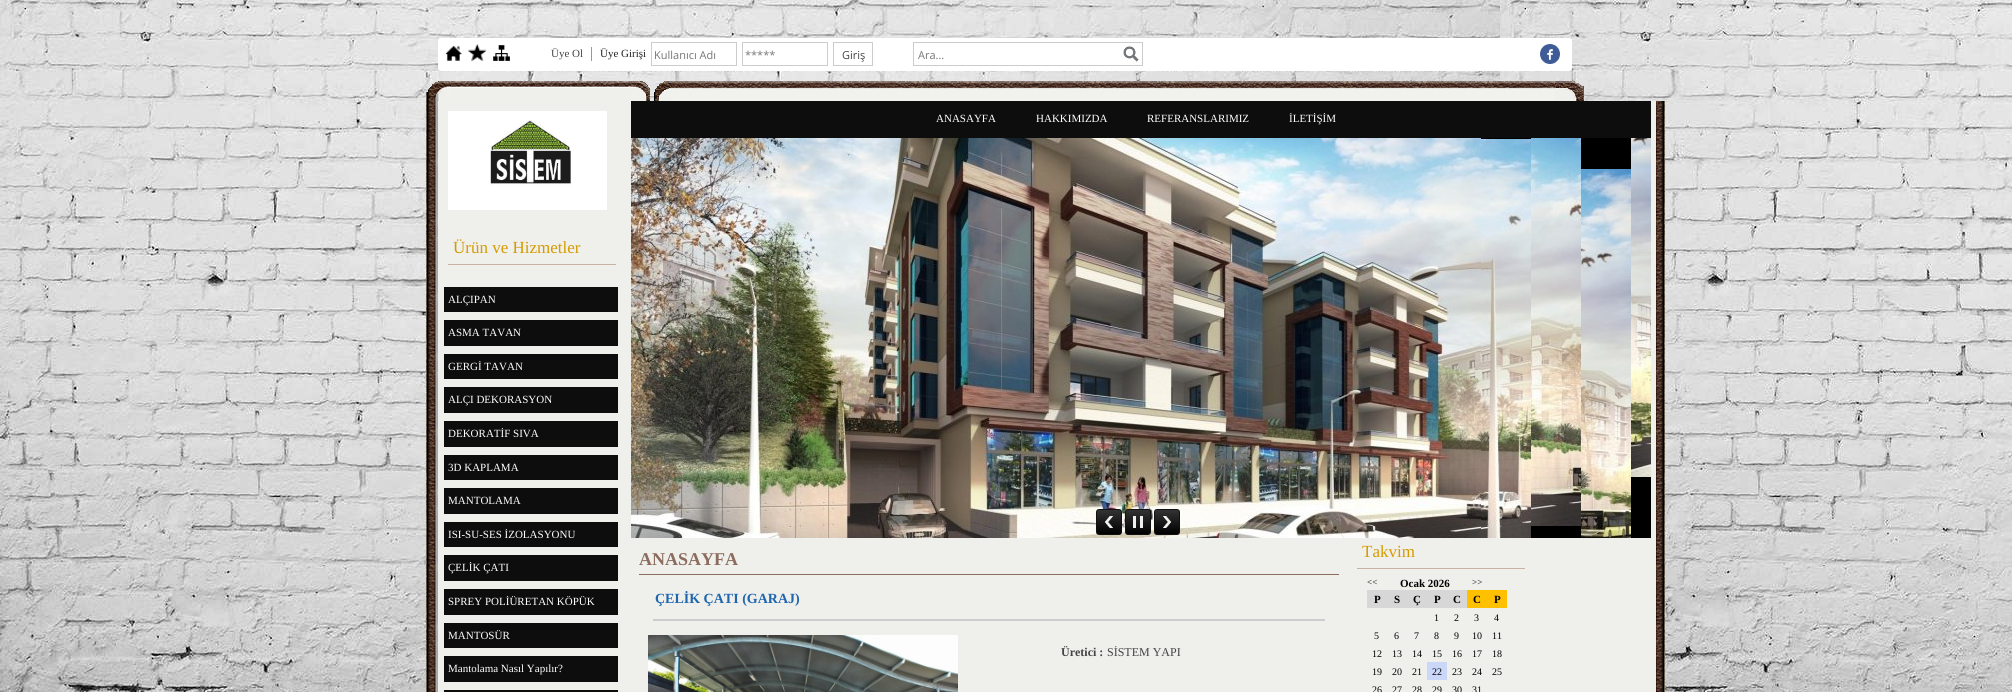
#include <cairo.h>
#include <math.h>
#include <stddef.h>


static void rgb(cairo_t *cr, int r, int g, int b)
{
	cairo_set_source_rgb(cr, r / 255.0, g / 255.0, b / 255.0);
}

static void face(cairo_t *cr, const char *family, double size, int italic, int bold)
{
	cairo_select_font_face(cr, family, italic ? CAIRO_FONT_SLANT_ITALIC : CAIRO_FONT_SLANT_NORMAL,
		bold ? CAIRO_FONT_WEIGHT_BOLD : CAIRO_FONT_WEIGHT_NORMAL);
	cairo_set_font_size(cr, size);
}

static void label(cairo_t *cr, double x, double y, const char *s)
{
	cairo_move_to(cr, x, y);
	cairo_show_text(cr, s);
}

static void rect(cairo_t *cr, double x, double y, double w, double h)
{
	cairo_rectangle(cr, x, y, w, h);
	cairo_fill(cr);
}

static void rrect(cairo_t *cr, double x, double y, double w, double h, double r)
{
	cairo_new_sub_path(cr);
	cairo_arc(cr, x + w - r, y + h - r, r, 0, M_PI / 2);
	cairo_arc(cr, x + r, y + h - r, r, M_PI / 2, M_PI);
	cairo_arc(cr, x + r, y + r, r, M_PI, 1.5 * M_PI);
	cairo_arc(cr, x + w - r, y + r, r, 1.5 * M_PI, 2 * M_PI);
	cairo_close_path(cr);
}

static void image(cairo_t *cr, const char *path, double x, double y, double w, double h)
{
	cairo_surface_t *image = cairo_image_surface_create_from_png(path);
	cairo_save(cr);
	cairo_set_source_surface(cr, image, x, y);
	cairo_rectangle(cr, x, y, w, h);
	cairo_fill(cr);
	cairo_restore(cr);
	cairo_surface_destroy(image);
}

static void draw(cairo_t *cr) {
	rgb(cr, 255, 255, 255);
	cairo_paint(cr);
	image(cr, "image0.png", 0, 0, 2012, 692);
	rgb(cr, 255, 255, 255);
	rrect(cr, 438, 38, 1134, 33, 3);
	cairo_fill(cr);
	image(cr, "image1.png", 445, 45, 17, 16);
	image(cr, "image2.png", 468, 44, 19, 17);
	image(cr, "image3.png", 493, 45, 17, 16);
	rgb(cr, 153, 153, 153);
	rect(cr, 591, 47, 1, 14);
	face(cr, "Liberation Serif", 11, 0, 0);
	rgb(cr, 68, 68, 68);
	label(cr, 551, 57, "Üye Ol");
	rgb(cr, 34, 34, 34);
	label(cr, 600, 57, "Üye Girişi");
	cairo_rectangle(cr, 651.5, 42.5, 85, 23);
	rgb(cr, 204, 204, 204);
	cairo_set_line_width(cr, 1);
	cairo_stroke(cr);
	face(cr, "Open Sans", 11, 0, 0);
	rgb(cr, 117, 117, 117);
	label(cr, 654, 59, "Kullanıcı Adı");
	cairo_rectangle(cr, 742.5, 42.5, 85, 23);
	rgb(cr, 204, 204, 204);
	cairo_stroke(cr);
	rgb(cr, 117, 117, 117);
	label(cr, 745, 59, "*****");
	cairo_rectangle(cr, 833.5, 42.5, 39, 23);
	rgb(cr, 204, 204, 204);
	cairo_stroke(cr);
	rgb(cr, 68, 68, 68);
	label(cr, 842, 59, "Giriş");
	cairo_rectangle(cr, 913.5, 42.5, 229, 23);
	rgb(cr, 204, 204, 204);
	cairo_stroke(cr);
	rgb(cr, 117, 117, 117);
	label(cr, 918, 59, "Ara...");
	image(cr, "image4.png", 1123, 46, 16, 16);
	image(cr, "image5.png", 1540, 44, 20, 20);
	image(cr, "image6.png", 426, 81, 1158, 20);
	image(cr, "image7.png", 426, 101, 12, 591);
	rgb(cr, 239, 239, 236);
	rect(cr, 438, 101, 193, 591);
	image(cr, "image8.png", 448, 111, 159, 99);
	rgb(cr, 199, 178, 166);
	rect(cr, 448, 264, 168, 1);
	face(cr, "Liberation Serif", 17, 0, 0);
	rgb(cr, 213, 155, 0);
	label(cr, 453, 253, "Ürün ve Hizmetler");
	rgb(cr, 13, 13, 13);
	rect(cr, 444, 287, 174, 25);
	face(cr, "Liberation Serif", 11, 0, 0);
	rgb(cr, 255, 255, 255);
	label(cr, 448, 303, "ALÇIPAN");
	rgb(cr, 13, 13, 13);
	rect(cr, 444, 320, 174, 26);
	rgb(cr, 255, 255, 255);
	label(cr, 448, 336, "ASMA TAVAN");
	rgb(cr, 13, 13, 13);
	rect(cr, 444, 354, 174, 25);
	rgb(cr, 255, 255, 255);
	label(cr, 448, 370, "GERGİ TAVAN");
	rgb(cr, 13, 13, 13);
	rect(cr, 444, 387, 174, 26);
	rgb(cr, 255, 255, 255);
	label(cr, 448, 403, "ALÇI DEKORASYON");
	rgb(cr, 13, 13, 13);
	rect(cr, 444, 421, 174, 26);
	rgb(cr, 255, 255, 255);
	label(cr, 448, 437, "DEKORATİF SIVA");
	rgb(cr, 13, 13, 13);
	rect(cr, 444, 455, 174, 25);
	rgb(cr, 255, 255, 255);
	label(cr, 448, 471, "3D KAPLAMA");
	rgb(cr, 13, 13, 13);
	rect(cr, 444, 488, 174, 26);
	rgb(cr, 255, 255, 255);
	label(cr, 448, 504, "MANTOLAMA");
	rgb(cr, 13, 13, 13);
	rect(cr, 444, 522, 174, 25);
	rgb(cr, 255, 255, 255);
	label(cr, 448, 538, "ISI-SU-SES İZOLASYONU");
	rgb(cr, 13, 13, 13);
	rect(cr, 444, 555, 174, 26);
	rgb(cr, 255, 255, 255);
	label(cr, 448, 571, "ÇELİK ÇATI");
	rgb(cr, 13, 13, 13);
	rect(cr, 444, 589, 174, 26);
	rgb(cr, 255, 255, 255);
	label(cr, 448, 605, "SPREY POLİÜRETAN KÖPÜK");
	rgb(cr, 13, 13, 13);
	rect(cr, 444, 623, 174, 25);
	rgb(cr, 255, 255, 255);
	label(cr, 448, 639, "MANTOSÜR");
	rgb(cr, 13, 13, 13);
	rect(cr, 444, 656, 174, 26);
	rgb(cr, 255, 255, 255);
	label(cr, 448, 672, "Mantolama Nasıl Yapılır?");
	rgb(cr, 13, 13, 13);
	rect(cr, 444, 690, 174, 2);
	rgb(cr, 239, 239, 236);
	rect(cr, 631, 538, 1020, 154);
	rgb(cr, 13, 13, 13);
	rect(cr, 631, 101, 1020, 37);
	rgb(cr, 255, 255, 255);
	label(cr, 936, 122, "ANASAYFA");
	label(cr, 1036, 122, "HAKKIMIZDA");
	label(cr, 1147, 122, "REFERANSLARIMIZ");
	label(cr, 1289, 122, "İLETİŞİM");
	rgb(cr, 0, 0, 0);
	rect(cr, 1481, 138, 170, 400);
	image(cr, "image9.png", 631, 138, 50, 400);
	image(cr, "image10.png", 681, 138, 50, 400);
	image(cr, "image11.png", 731, 138, 50, 400);
	image(cr, "image12.png", 781, 138, 50, 400);
	image(cr, "image13.png", 831, 138, 50, 400);
	image(cr, "image14.png", 881, 138, 50, 400);
	image(cr, "image15.png", 931, 138, 50, 400);
	image(cr, "image16.png", 981, 138, 50, 400);
	image(cr, "image17.png", 1031, 138, 50, 400);
	image(cr, "image18.png", 1081, 138, 50, 400);
	image(cr, "image19.png", 1131, 138, 50, 400);
	image(cr, "image20.png", 1181, 138, 50, 400);
	image(cr, "image21.png", 1231, 138, 50, 400);
	image(cr, "image22.png", 1281, 138, 50, 400);
	image(cr, "image23.png", 1331, 138, 50, 400);
	image(cr, "image24.png", 1381, 138, 50, 400);
	image(cr, "image25.png", 1431, 138, 50, 400);
	image(cr, "image26.png", 1481, 139, 50, 399);
	image(cr, "image27.png", 1531, 138, 50, 388);
	image(cr, "image28.png", 1581, 169, 50, 369);
	image(cr, "image29.png", 1631, 138, 20, 339);
	image(cr, "image30.png", 1097, 510, 24, 24);
	rrect(cr, 1096.5, 509.5, 25, 25, 2.5);
	rgb(cr, 17, 17, 17);
	cairo_stroke(cr);
	image(cr, "image31.png", 1126, 510, 24, 24);
	rrect(cr, 1125.5, 509.5, 25, 25, 2.5);
	cairo_stroke(cr);
	image(cr, "image32.png", 1155, 510, 24, 24);
	rrect(cr, 1154.5, 509.5, 25, 25, 2.5);
	cairo_stroke(cr);
	rgb(cr, 140, 108, 92);
	rect(cr, 639, 574, 700, 1);
	face(cr, "Liberation Serif", 18, 0, 1);
	label(cr, 639, 565, "ANASAYFA");
	face(cr, "Liberation Serif", 14, 0, 1);
	rgb(cr, 30, 102, 174);
	label(cr, 655, 603, "ÇELİK ÇATI (GARAJ)");
	rgb(cr, 204, 204, 204);
	rect(cr, 653, 619, 672, 2);
	image(cr, "image33.png", 648, 635, 310, 57);
	face(cr, "Liberation Serif", 12, 0, 1);
	rgb(cr, 68, 68, 68);
	label(cr, 1061, 656, "Üretici :");
	face(cr, "Liberation Serif", 12, 0, 0);
	label(cr, 1107, 656, "SİSTEM YAPI");
	rgb(cr, 199, 178, 166);
	rect(cr, 1357, 568, 168, 1);
	face(cr, "Liberation Serif", 17, 0, 0);
	rgb(cr, 213, 155, 0);
	label(cr, 1362, 557, "Takvim");
	face(cr, "Liberation Serif", 9, 0, 1);
	rgb(cr, 68, 68, 68);
	label(cr, 1367, 585, "<<");
	face(cr, "Liberation Serif", 11, 0, 1);
	rgb(cr, 0, 0, 0);
	label(cr, 1400, 587, "Ocak 2026");
	face(cr, "Liberation Serif", 9, 0, 1);
	rgb(cr, 68, 68, 68);
	label(cr, 1472, 585, ">>");
	rgb(cr, 215, 215, 215);
	rect(cr, 1367, 590, 100, 18);
	face(cr, "Liberation Serif", 11, 0, 1);
	rgb(cr, 0, 0, 0);
	label(cr, 1374, 603, "P");
	label(cr, 1394, 603, "S");
	label(cr, 1413, 603, "Ç");
	label(cr, 1434, 603, "P");
	label(cr, 1453, 603, "C");
	rgb(cr, 255, 192, 0);
	rect(cr, 1467, 590, 40, 18);
	rgb(cr, 0, 0, 0);
	label(cr, 1473, 603, "C");
	label(cr, 1494, 603, "P");
	face(cr, "Liberation Serif", 10, 0, 0);
	label(cr, 1434, 621, "1");
	label(cr, 1454, 621, "2");
	label(cr, 1474, 621, "3");
	label(cr, 1494, 621, "4");
	label(cr, 1374, 639, "5");
	label(cr, 1394, 639, "6");
	label(cr, 1414, 639, "7");
	label(cr, 1434, 639, "8");
	label(cr, 1454, 639, "9");
	label(cr, 1472, 639, "10");
	label(cr, 1492, 639, "11");
	label(cr, 1372, 657, "12");
	label(cr, 1392, 657, "13");
	label(cr, 1412, 657, "14");
	label(cr, 1432, 657, "15");
	label(cr, 1452, 657, "16");
	label(cr, 1472, 657, "17");
	label(cr, 1492, 657, "18");
	label(cr, 1372, 675, "19");
	label(cr, 1392, 675, "20");
	label(cr, 1412, 675, "21");
	rgb(cr, 202, 215, 249);
	rect(cr, 1427, 662, 20, 18);
	rgb(cr, 0, 0, 0);
	label(cr, 1432, 675, "22");
	label(cr, 1452, 675, "23");
	label(cr, 1472, 675, "24");
	label(cr, 1492, 675, "25");
	label(cr, 1372, 693, "26");
	label(cr, 1392, 693, "27");
	label(cr, 1412, 693, "28");
	label(cr, 1432, 693, "29");
	label(cr, 1452, 693, "30");
	label(cr, 1472, 693, "31");
	image(cr, "image34.png", 1651, 101, 14, 591);
}

int main(void) {
	cairo_surface_t *surface = cairo_image_surface_create(CAIRO_FORMAT_RGB24, 2012, 692);
	cairo_t *cr = cairo_create(surface);
	cairo_font_options_t *options = cairo_font_options_create();
	cairo_font_options_set_hint_metrics(options, CAIRO_HINT_METRICS_OFF);
	cairo_font_options_set_hint_style(options, CAIRO_HINT_STYLE_NONE);
	cairo_set_font_options(cr, options);
	cairo_set_miter_limit(cr, 4);
	draw(cr);
	cairo_surface_write_to_png(surface, "render.png");
	cairo_font_options_destroy(options);
	cairo_destroy(cr);
	cairo_surface_destroy(surface);
	return 0;
}
